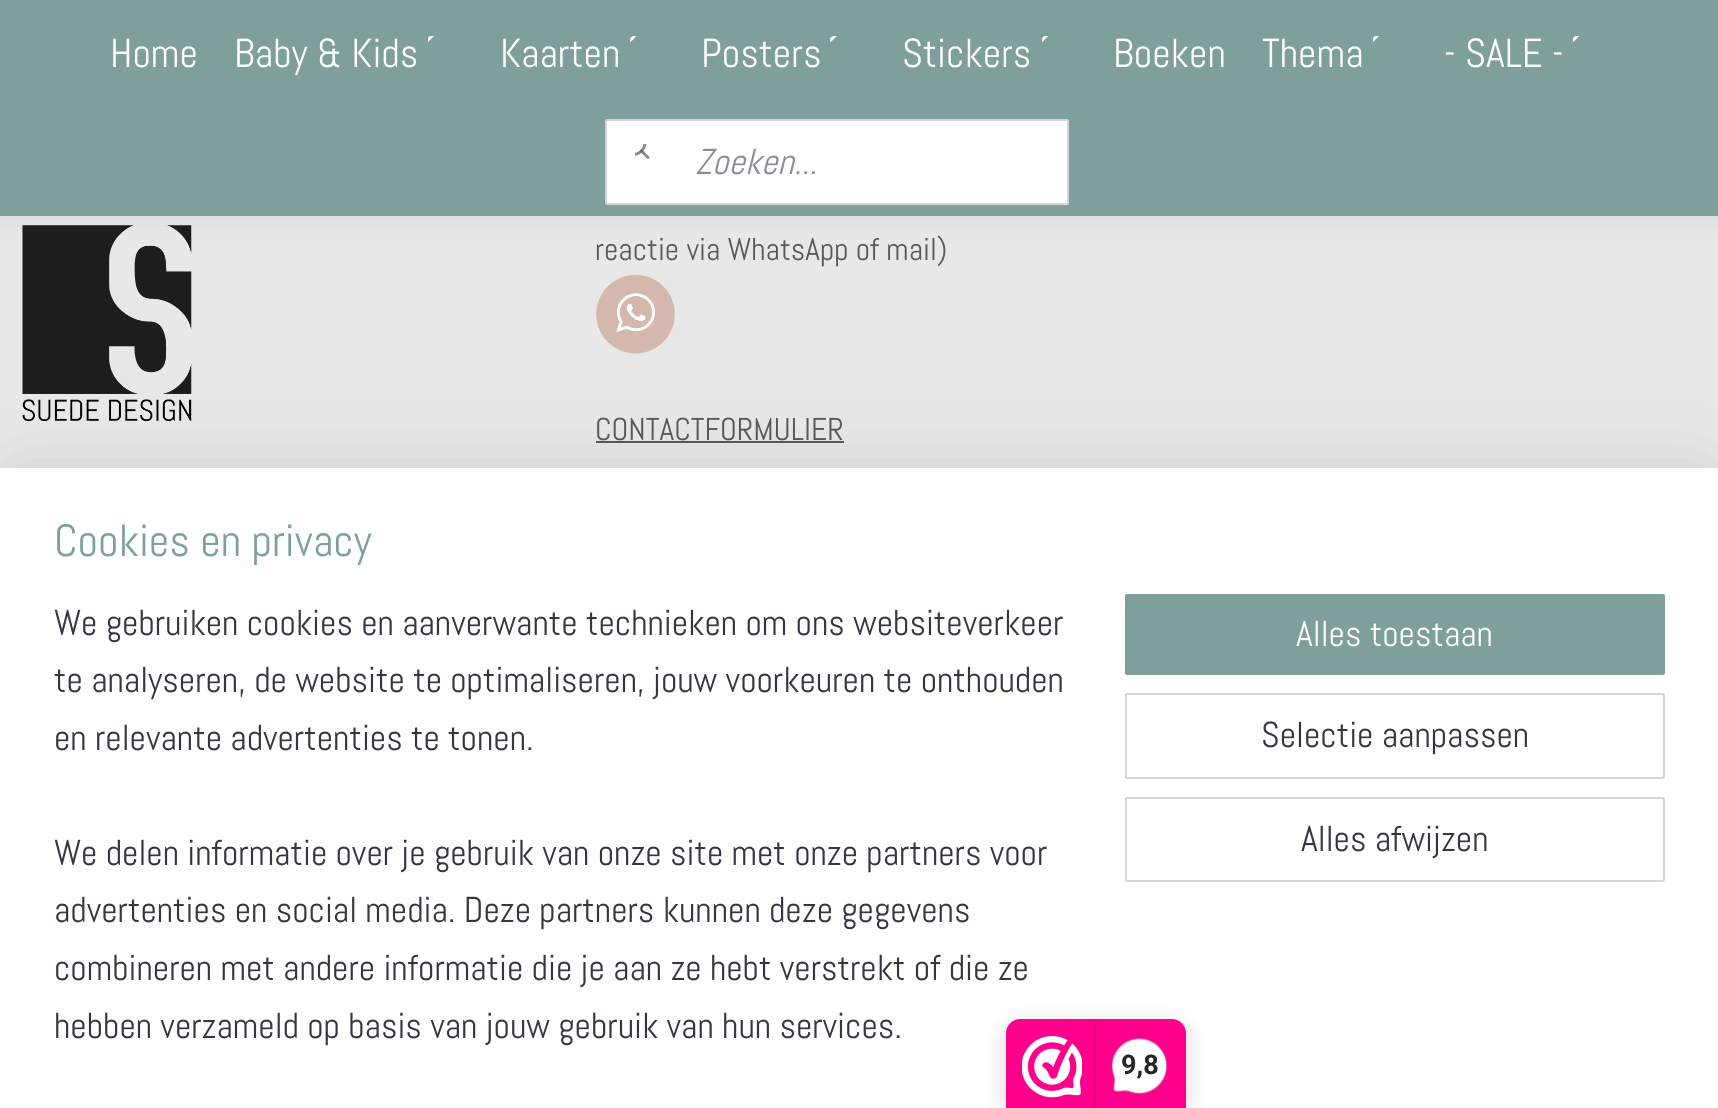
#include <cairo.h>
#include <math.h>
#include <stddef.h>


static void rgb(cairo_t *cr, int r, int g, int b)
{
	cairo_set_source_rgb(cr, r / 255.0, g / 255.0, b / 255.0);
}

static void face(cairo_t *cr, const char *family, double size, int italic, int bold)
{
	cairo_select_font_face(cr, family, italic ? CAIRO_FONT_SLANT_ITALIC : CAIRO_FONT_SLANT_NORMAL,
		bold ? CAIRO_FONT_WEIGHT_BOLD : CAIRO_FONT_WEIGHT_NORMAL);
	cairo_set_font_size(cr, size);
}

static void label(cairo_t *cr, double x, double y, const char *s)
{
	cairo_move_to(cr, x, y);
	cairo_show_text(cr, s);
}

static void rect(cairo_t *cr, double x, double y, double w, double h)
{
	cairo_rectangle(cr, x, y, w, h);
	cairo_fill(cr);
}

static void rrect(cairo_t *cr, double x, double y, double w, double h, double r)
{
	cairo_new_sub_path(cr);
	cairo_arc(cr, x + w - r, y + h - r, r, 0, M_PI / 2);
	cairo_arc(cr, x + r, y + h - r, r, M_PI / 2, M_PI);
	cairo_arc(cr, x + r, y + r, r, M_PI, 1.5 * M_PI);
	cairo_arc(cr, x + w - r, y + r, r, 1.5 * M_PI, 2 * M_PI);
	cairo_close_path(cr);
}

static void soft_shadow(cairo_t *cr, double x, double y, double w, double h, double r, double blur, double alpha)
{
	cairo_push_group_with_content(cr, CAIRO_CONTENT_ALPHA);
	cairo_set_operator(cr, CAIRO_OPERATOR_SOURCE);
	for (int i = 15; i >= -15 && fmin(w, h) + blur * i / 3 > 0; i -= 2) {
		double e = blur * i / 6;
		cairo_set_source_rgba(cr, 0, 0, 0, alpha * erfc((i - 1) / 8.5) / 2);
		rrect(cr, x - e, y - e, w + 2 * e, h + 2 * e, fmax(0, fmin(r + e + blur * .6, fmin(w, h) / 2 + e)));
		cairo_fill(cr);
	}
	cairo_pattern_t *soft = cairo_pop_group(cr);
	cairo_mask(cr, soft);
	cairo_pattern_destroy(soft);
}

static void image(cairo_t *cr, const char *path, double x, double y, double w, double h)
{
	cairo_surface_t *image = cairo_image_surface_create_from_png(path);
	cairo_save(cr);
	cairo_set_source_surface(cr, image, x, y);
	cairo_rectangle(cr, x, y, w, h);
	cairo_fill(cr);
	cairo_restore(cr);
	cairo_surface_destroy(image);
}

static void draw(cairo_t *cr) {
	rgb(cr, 232, 232, 232);
	cairo_paint(cr);
	image(cr, "image5.png", 22, 225, 170, 196);
	rgb(cr, 0, 0, 0);
	soft_shadow(cr, 0, 0, 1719, 216, 0, 13.5, 0.08);
	rgb(cr, 126, 159, 155);
	rect(cr, 0, 0, 1718, 216);
	face(cr, "Abel", 40.5, 0, 0);
	rgb(cr, 255, 255, 255);
	label(cr, 110, 67, "Home");
	label(cr, 234, 67, "Baby & Kids");
	image(cr, "image0.png", 428, 36, 6, 6);
	label(cr, 500, 67, "Kaarten");
	image(cr, "image1.png", 630, 36, 7, 6);
	label(cr, 701, 67, "Posters");
	image(cr, "image2.png", 830, 36, 7, 6);
	label(cr, 902, 67, "Stickers");
	image(cr, "image3.png", 1042, 36, 7, 6);
	label(cr, 1113, 67, "Boeken");
	label(cr, 1262, 67, "Thema");
	image(cr, "image0.png", 1373, 36, 6, 6);
	label(cr, 1444, 67, "- SALE -");
	image(cr, "image3.png", 1573, 36, 7, 6);
	rrect(cr, 606, 120, 462, 84, 1);
	cairo_fill_preserve(cr);
	rgb(cr, 211, 213, 217);
	cairo_stroke(cr);
	image(cr, "image4.png", 635, 144, 15, 15);
	face(cr, "Abel", 36, 1, 0);
	rgb(cr, 137, 140, 145);
	label(cr, 695, 174, "Zoeken...");
	face(cr, "Abel", 31.5, 0, 0);
	rgb(cr, 89, 89, 89);
	label(cr, 595, 260, "reactie via WhatsApp of mail)");
	image(cr, "image6.png", 596, 274, 79, 80);
	label(cr, 595, 440, "CONTACTFORMULIER");
	rect(cr, 596, 441, 248, 2);
	rgb(cr, 0, 0, 0);
	soft_shadow(cr, 23, 491, 1674, 596, 0, 40.5, 0.2);
	rgb(cr, 255, 255, 255);
	rect(cr, 0, 468, 1718, 640);
	face(cr, "Abel", 45, 0, 0);
	rgb(cr, 126, 159, 155);
	label(cr, 54, 556, "Cookies en privacy");
	face(cr, "Abel", 36, 0, 0);
	rgb(cr, 51, 55, 64);
	label(cr, 54, 635, "We gebruiken cookies en aanverwante technieken om ons websiteverkeer");
	label(cr, 54, 692, "te analyseren, de website te optimaliseren, jouw voorkeuren te onthouden");
	label(cr, 54, 750, "en relevante advertenties te tonen.");
	label(cr, 54, 865, "We delen informatie over je gebruik van onze site met onze partners voor");
	label(cr, 54, 922, "advertenties en social media. Deze partners kunnen deze gegevens");
	label(cr, 54, 980, "combineren met andere informatie die je aan ze hebt verstrekt of die ze");
	label(cr, 54, 1038, "hebben verzameld op basis van jouw gebruik van hun services.");
	rgb(cr, 126, 159, 155);
	rrect(cr, 1125, 594, 540, 81, 2);
	cairo_fill(cr);
	rgb(cr, 255, 255, 255);
	label(cr, 1296, 646, "Alles toestaan");
	rrect(cr, 1126, 694, 538, 84, 1);
	rgb(cr, 214, 214, 214);
	cairo_stroke(cr);
	rgb(cr, 51, 55, 64);
	label(cr, 1261, 747, "Selectie aanpassen");
	rrect(cr, 1126, 798, 538, 83, 1);
	rgb(cr, 214, 214, 214);
	cairo_stroke(cr);
	rgb(cr, 51, 55, 64);
	label(cr, 1301, 851, "Alles afwijzen");
	rgb(cr, 0, 0, 0);
	soft_shadow(cr, 1006, 1024, 180, 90, 14, 11, 0.15);
	rgb(cr, 254, 0, 140);
	cairo_new_path(cr);
	cairo_move_to(cr, 1020, 1019);
	cairo_line_to(cr, 1172, 1019);
	cairo_curve_to(cr, 1179.5, 1019, 1186, 1025.5, 1186, 1033);
	cairo_line_to(cr, 1186, 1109);
	cairo_line_to(cr, 1006, 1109);
	cairo_line_to(cr, 1006, 1033);
	cairo_curve_to(cr, 1006, 1025.5, 1012.5, 1019, 1020, 1019);
	cairo_close_path(cr);
	cairo_fill(cr);
	image(cr, "image7.png", 1022, 1036, 60, 62);
	rgb(cr, 216, 0, 119);
	rect(cr, 1094, 1022, 2, 86);
	image(cr, "image8.png", 1111, 1038, 57, 57);
	face(cr, "Roboto", 27, 0, 1);
	rgb(cr, 39, 38, 38);
	label(cr, 1121, 1074, "9,8");
}

int main(void) {
	cairo_surface_t *surface = cairo_image_surface_create(CAIRO_FORMAT_RGB24, 1718, 1108);
	cairo_t *cr = cairo_create(surface);
	cairo_font_options_t *options = cairo_font_options_create();
	cairo_font_options_set_hint_metrics(options, CAIRO_HINT_METRICS_OFF);
	cairo_font_options_set_hint_style(options, CAIRO_HINT_STYLE_NONE);
	cairo_set_font_options(cr, options);
	cairo_set_miter_limit(cr, 4);
	draw(cr);
	cairo_surface_write_to_png(surface, "render.png");
	cairo_font_options_destroy(options);
	cairo_destroy(cr);
	cairo_surface_destroy(surface);
	return 0;
}
